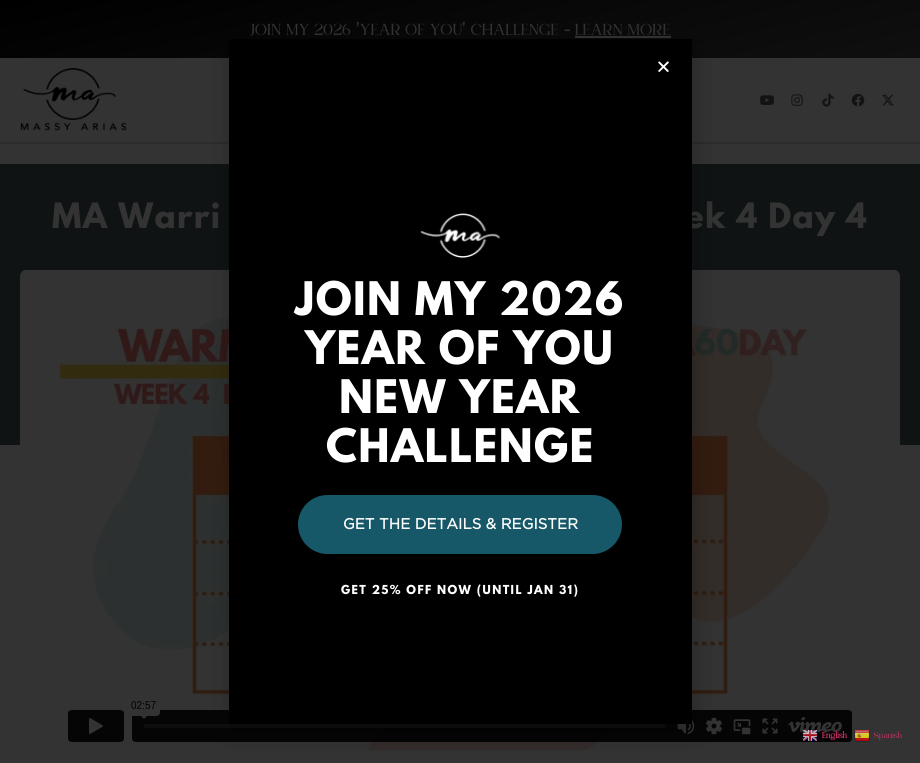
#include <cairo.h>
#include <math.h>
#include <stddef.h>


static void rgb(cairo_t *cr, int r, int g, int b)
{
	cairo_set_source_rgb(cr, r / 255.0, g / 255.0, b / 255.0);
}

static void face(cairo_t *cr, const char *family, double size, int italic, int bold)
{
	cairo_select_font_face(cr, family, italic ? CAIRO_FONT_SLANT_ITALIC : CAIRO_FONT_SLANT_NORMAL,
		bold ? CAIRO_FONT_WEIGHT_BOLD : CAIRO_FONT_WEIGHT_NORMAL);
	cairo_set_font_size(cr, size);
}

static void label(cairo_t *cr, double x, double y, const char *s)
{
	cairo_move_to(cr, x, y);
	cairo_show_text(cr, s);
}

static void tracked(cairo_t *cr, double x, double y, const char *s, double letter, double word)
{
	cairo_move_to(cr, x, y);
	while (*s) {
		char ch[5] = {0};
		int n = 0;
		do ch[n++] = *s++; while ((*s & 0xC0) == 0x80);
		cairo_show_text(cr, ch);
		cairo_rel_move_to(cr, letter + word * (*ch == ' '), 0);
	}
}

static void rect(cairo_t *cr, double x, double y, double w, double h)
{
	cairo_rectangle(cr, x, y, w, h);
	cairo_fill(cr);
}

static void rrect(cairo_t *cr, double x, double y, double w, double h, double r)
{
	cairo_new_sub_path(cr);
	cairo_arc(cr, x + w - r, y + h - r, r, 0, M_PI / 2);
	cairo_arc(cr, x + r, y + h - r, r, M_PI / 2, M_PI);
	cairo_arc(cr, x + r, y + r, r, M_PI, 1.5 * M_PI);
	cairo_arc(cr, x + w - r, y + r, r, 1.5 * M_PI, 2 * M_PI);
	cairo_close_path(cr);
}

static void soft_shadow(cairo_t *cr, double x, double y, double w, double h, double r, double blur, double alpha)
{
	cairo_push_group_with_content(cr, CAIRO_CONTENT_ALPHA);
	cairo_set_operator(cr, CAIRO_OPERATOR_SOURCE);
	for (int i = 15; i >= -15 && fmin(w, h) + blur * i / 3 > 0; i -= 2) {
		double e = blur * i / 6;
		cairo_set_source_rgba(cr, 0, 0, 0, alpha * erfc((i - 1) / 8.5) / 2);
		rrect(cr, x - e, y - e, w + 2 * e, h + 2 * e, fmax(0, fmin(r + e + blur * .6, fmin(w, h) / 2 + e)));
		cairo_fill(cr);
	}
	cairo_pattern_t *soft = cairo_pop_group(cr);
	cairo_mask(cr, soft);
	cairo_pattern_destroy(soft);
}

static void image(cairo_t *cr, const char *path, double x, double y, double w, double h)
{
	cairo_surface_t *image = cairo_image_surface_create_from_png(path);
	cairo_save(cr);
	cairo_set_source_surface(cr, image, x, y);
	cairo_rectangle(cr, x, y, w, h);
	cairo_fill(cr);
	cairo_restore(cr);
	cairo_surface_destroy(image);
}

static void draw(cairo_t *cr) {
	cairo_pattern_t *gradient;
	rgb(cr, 51, 51, 51);
	cairo_paint(cr);
	gradient = cairo_pattern_create_linear(430, -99, 490, 157);
	cairo_pattern_add_color_stop_rgba(gradient, 0, 0, 0, 0, 1);
	cairo_pattern_add_color_stop_rgba(gradient, 1, 0.059, 0.059, 0.059, 1);
	cairo_set_source(cr, gradient);
	cairo_pattern_destroy(gradient);
	rect(cr, 0, 0, 920, 58);
	face(cr, "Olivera", 20, 0, 0);
	rgb(cr, 51, 51, 51);
	label(cr, 249, 35, "JOIN MY 2026");
	face(cr, "Liberation Serif", 20, 0, 0);
	label(cr, 356, 35, "'");
	face(cr, "Olivera", 20, 0, 0);
	label(cr, 360, 35, "YEAR OF YOU");
	face(cr, "Liberation Serif", 20, 0, 0);
	label(cr, 462, 35, "'");
	face(cr, "Olivera", 20, 0, 0);
	label(cr, 471, 35, "CHALLENGE");
	face(cr, "Liberation Serif", 20, 0, 0);
	label(cr, 564, 35, "-");
	face(cr, "Olivera", 20, 0, 0);
	label(cr, 575, 35, "LEARN MORE");
	rect(cr, 575, 36, 96, 2);
	rgb(cr, 44, 44, 44);
	rect(cr, 0, 142, 920, 2);
	image(cr, "image0.png", 20, 68, 107, 63);
	image(cr, "image1.png", 760, 95, 14, 10);
	image(cr, "image2.png", 791, 94, 12, 12);
	image(cr, "image3.png", 822, 93, 12, 14);
	image(cr, "image4.png", 851, 93, 14, 14);
	image(cr, "image5.png", 882, 94, 12, 12);
	rgb(cr, 15, 19, 19);
	rect(cr, 0, 164, 920, 281);
	face(cr, "League Spartan", 31, 0, 1);
	rgb(cr, 51, 51, 51);
	tracked(cr, 52, 228, "MA Warri", 1.4, 0);
	tracked(cr, 685, 228, "ek 4 Day 4", 1.4, 0);
	rrect(cr, 20, 270, 880, 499, 6);
	cairo_fill(cr);
	image(cr, "image6.png", 60, 318, 792, 432);
	rgb(cr, 0, 0, 0);
	soft_shadow(cr, 228, 44, 469, 691, 0, 11.5, 0.2);
	rgb(cr, 0, 0, 0);
	rect(cr, 229, 39, 463, 685);
	image(cr, "image7.png", 658, 61, 11, 11);
	image(cr, "image8.png", 420, 213, 81, 46);
	face(cr, "League Spartan", 41, 0, 1);
	rgb(cr, 255, 255, 255);
	tracked(cr, 295, 315, "JOIN MY 2026", 1.4, 0);
	tracked(cr, 305, 364, "YEAR OF YOU", 1.4, 0);
	tracked(cr, 339, 413, "NEW YEAR", 1.4, 0);
	tracked(cr, 326, 462, "CHALLENGE", 1.4, 0);
	rgb(cr, 23, 88, 104);
	rrect(cr, 298, 495, 324, 59, 29.5);
	cairo_fill(cr);
	face(cr, "Gotham", 15, 0, 1);
	rgb(cr, 255, 255, 255);
	label(cr, 343, 529, "GET THE DETAILS & REGISTER");
	face(cr, "League Spartan", 11, 0, 1);
	tracked(cr, 341, 594, "GET 25% OFF NOW (UNTIL JAN 31)", 1.4, 0);
	image(cr, "image9.png", 802, 730, 15, 11);
	face(cr, "Olivera", 10, 0, 1);
	rgb(cr, 204, 51, 102);
	label(cr, 822, 738, "English");
	image(cr, "image10.png", 854, 730, 16, 12);
	face(cr, "Olivera", 10, 0, 0);
	label(cr, 874, 738, "Spanish");
}

int main(void) {
	cairo_surface_t *surface = cairo_image_surface_create(CAIRO_FORMAT_RGB24, 920, 763);
	cairo_t *cr = cairo_create(surface);
	cairo_font_options_t *options = cairo_font_options_create();
	cairo_font_options_set_hint_metrics(options, CAIRO_HINT_METRICS_OFF);
	cairo_font_options_set_hint_style(options, CAIRO_HINT_STYLE_NONE);
	cairo_set_font_options(cr, options);
	cairo_set_miter_limit(cr, 4);
	draw(cr);
	cairo_surface_write_to_png(surface, "render.png");
	cairo_font_options_destroy(options);
	cairo_destroy(cr);
	cairo_surface_destroy(surface);
	return 0;
}
